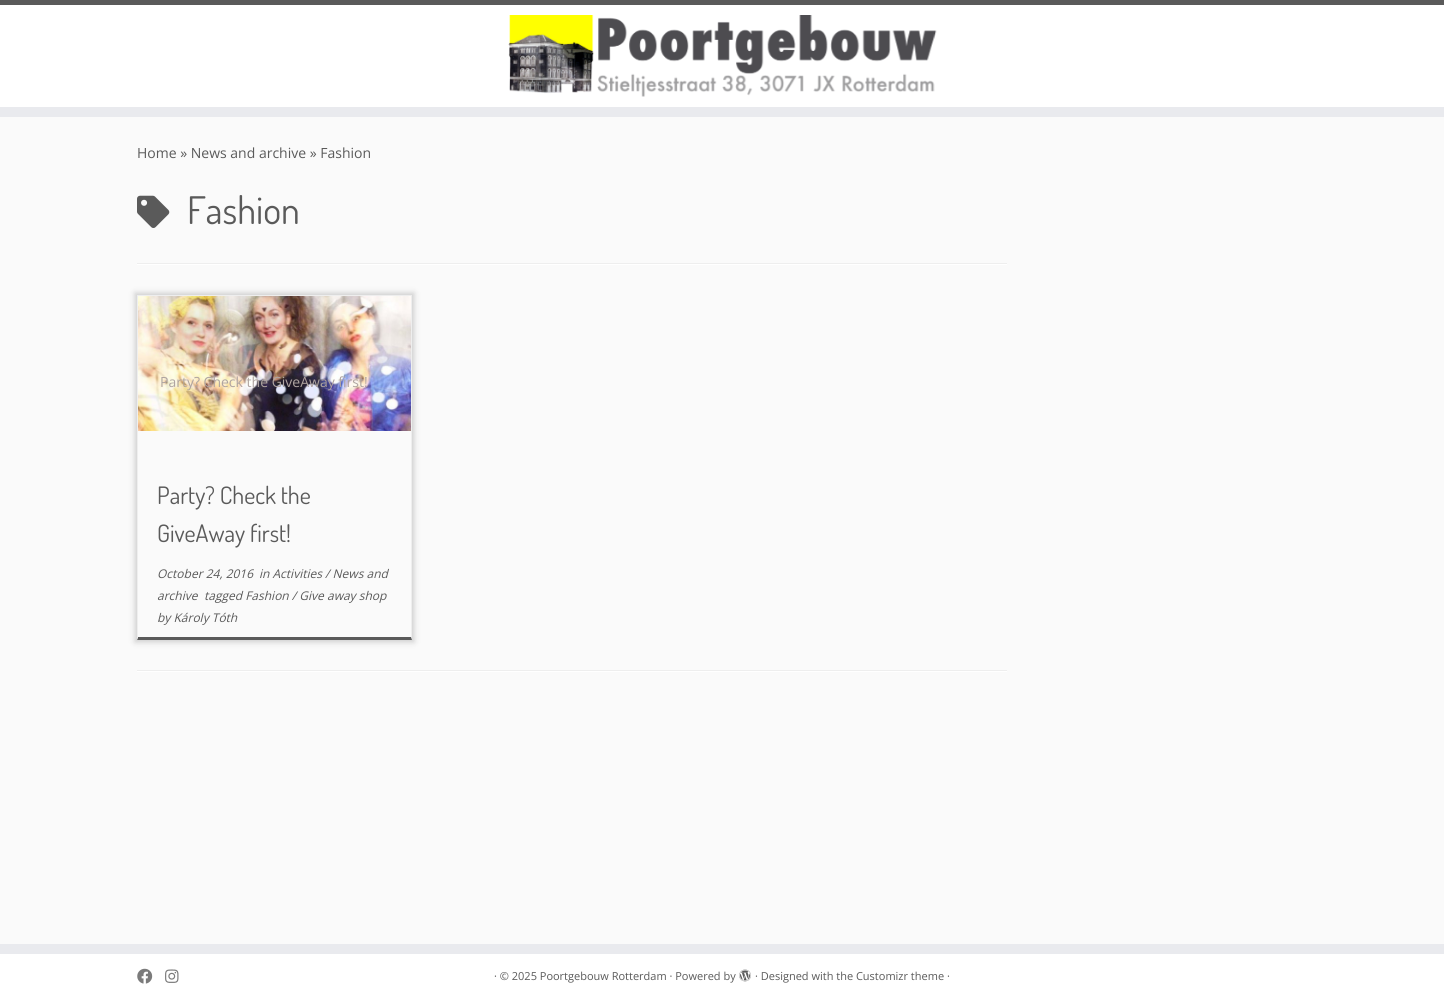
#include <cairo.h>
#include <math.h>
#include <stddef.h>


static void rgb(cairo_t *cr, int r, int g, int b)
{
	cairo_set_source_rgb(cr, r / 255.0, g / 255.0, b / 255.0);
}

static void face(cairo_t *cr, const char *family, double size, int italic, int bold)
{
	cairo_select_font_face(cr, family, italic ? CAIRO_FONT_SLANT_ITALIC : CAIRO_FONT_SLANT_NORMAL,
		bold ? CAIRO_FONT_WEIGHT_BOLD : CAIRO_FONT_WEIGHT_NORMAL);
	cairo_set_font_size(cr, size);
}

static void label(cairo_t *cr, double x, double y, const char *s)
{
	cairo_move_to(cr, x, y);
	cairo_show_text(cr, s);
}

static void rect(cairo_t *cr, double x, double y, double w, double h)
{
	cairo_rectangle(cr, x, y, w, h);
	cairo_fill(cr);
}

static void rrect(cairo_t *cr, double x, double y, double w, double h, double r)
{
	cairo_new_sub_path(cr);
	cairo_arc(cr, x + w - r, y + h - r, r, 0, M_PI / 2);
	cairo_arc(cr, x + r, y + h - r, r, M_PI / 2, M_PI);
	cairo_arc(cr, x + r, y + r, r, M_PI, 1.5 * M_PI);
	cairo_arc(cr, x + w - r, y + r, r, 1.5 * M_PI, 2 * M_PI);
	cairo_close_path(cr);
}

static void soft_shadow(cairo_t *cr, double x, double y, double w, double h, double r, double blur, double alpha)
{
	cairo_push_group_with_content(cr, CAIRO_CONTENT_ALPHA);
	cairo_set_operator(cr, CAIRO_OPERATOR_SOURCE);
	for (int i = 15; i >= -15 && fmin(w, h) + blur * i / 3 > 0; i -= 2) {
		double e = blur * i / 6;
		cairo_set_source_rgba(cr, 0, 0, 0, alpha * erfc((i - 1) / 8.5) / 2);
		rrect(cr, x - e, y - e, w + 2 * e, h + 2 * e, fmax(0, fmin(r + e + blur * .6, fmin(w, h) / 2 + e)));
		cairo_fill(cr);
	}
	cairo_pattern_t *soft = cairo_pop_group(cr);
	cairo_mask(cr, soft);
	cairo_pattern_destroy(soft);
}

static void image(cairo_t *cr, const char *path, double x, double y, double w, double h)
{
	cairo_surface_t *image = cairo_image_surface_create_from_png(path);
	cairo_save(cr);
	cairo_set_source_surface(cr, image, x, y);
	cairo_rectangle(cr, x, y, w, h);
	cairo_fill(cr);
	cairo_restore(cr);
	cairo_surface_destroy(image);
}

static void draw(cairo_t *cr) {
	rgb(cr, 250, 250, 250);
	cairo_paint(cr);
	rgb(cr, 255, 255, 255);
	rect(cr, 0, 5, 1444, 102);
	rgb(cr, 90, 90, 90);
	rect(cr, 0, 0, 1444, 5);
	rgb(cr, 233, 234, 238);
	rect(cr, 0, 107, 1444, 10);
	image(cr, "image0.png", 508, 15, 429, 82);
	face(cr, "Open Sans", 14, 0, 0);
	rgb(cr, 90, 90, 90);
	label(cr, 137, 158, "Home » News and archive » Fashion");
	image(cr, "image1.png", 137, 195, 33, 33);
	face(cr, "Dosis", 38, 0, 0);
	label(cr, 187, 224, "Fashion");
	rgb(cr, 238, 238, 238);
	rect(cr, 137, 263, 870, 1);
	rgb(cr, 255, 255, 255);
	rect(cr, 137, 264, 870, 1);
	cairo_save(cr);
	cairo_set_fill_rule(cr, CAIRO_FILL_RULE_EVEN_ODD);
	cairo_new_path(cr);
	cairo_move_to(cr, 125, 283);
	cairo_line_to(cr, 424, 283);
	cairo_line_to(cr, 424, 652);
	cairo_line_to(cr, 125, 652);
	cairo_close_path(cr);
	cairo_move_to(cr, 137, 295);
	cairo_line_to(cr, 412, 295);
	cairo_line_to(cr, 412, 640);
	cairo_line_to(cr, 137, 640);
	cairo_close_path(cr);
	cairo_clip(cr);
	rgb(cr, 204, 204, 204);
	soft_shadow(cr, 135, 293, 279, 349, 0, 3, 1);
	cairo_restore(cr);
	rgb(cr, 238, 238, 238);
	rect(cr, 137, 295, 275, 1);
	cairo_new_path(cr);
	cairo_move_to(cr, 412, 295);
	cairo_line_to(cr, 412, 640);
	cairo_line_to(cr, 411, 637);
	cairo_line_to(cr, 411, 296);
	cairo_close_path(cr);
	cairo_fill(cr);
	rgb(cr, 90, 90, 90);
	cairo_new_path(cr);
	cairo_move_to(cr, 412, 640);
	cairo_line_to(cr, 137, 640);
	cairo_line_to(cr, 138, 637);
	cairo_line_to(cr, 411, 637);
	cairo_close_path(cr);
	cairo_fill(cr);
	rgb(cr, 238, 238, 238);
	cairo_new_path(cr);
	cairo_move_to(cr, 137, 640);
	cairo_line_to(cr, 137, 295);
	cairo_line_to(cr, 138, 296);
	cairo_line_to(cr, 138, 637);
	cairo_close_path(cr);
	cairo_fill(cr);
	image(cr, "image2.png", 138, 296, 273, 135);
	face(cr, "Open Sans", 14, 0, 0);
	rgb(cr, 175, 164, 160);
	label(cr, 160, 387, "Party? Check the GiveAway first!");
	face(cr, "Dosis", 24, 0, 0);
	rgb(cr, 90, 90, 90);
	label(cr, 157, 504, "Party? Check the");
	label(cr, 157, 542, "GiveAway first!");
	face(cr, "Open Sans", 12, 1, 0);
	label(cr, 157, 578, "October 24, 2016");
	label(cr, 259, 578, "in Activities / News and");
	label(cr, 157, 600, "archive");
	label(cr, 204, 600, "tagged Fashion / Give away shop");
	label(cr, 157, 622, "by Károly Tóth");
	rgb(cr, 238, 238, 238);
	rect(cr, 137, 670, 870, 1);
	rgb(cr, 255, 255, 255);
	rect(cr, 137, 671, 870, 1);
	rgb(cr, 233, 234, 238);
	rect(cr, 0, 944, 1444, 10);
	rgb(cr, 255, 255, 255);
	rect(cr, 0, 954, 1444, 52);
	image(cr, "image3.png", 137, 968, 16, 16);
	image(cr, "image4.png", 165, 969, 14, 14);
	face(cr, "Open Sans", 11, 0, 0);
	rgb(cr, 90, 90, 90);
	label(cr, 494, 980, "· © 2025 Poortgebouw Rotterdam · Powered by");
	image(cr, "image5.png", 739, 969, 12, 13);
	label(cr, 755, 980, "· Designed with the Customizr theme ·");
}

int main(void) {
	cairo_surface_t *surface = cairo_image_surface_create(CAIRO_FORMAT_RGB24, 1444, 1006);
	cairo_t *cr = cairo_create(surface);
	cairo_font_options_t *options = cairo_font_options_create();
	cairo_font_options_set_hint_metrics(options, CAIRO_HINT_METRICS_OFF);
	cairo_font_options_set_hint_style(options, CAIRO_HINT_STYLE_NONE);
	cairo_set_font_options(cr, options);
	cairo_set_miter_limit(cr, 4);
	draw(cr);
	cairo_surface_write_to_png(surface, "render.png");
	cairo_font_options_destroy(options);
	cairo_destroy(cr);
	cairo_surface_destroy(surface);
	return 0;
}
